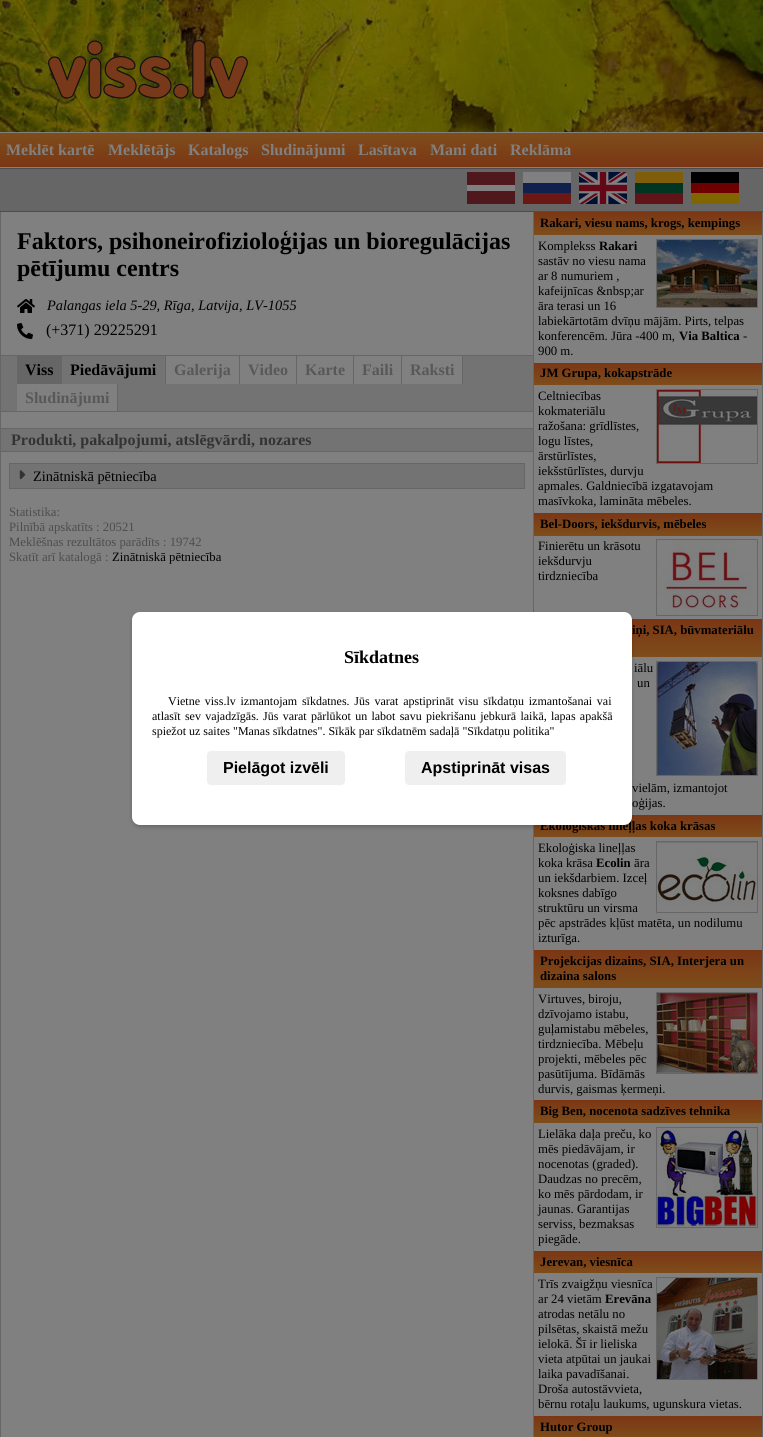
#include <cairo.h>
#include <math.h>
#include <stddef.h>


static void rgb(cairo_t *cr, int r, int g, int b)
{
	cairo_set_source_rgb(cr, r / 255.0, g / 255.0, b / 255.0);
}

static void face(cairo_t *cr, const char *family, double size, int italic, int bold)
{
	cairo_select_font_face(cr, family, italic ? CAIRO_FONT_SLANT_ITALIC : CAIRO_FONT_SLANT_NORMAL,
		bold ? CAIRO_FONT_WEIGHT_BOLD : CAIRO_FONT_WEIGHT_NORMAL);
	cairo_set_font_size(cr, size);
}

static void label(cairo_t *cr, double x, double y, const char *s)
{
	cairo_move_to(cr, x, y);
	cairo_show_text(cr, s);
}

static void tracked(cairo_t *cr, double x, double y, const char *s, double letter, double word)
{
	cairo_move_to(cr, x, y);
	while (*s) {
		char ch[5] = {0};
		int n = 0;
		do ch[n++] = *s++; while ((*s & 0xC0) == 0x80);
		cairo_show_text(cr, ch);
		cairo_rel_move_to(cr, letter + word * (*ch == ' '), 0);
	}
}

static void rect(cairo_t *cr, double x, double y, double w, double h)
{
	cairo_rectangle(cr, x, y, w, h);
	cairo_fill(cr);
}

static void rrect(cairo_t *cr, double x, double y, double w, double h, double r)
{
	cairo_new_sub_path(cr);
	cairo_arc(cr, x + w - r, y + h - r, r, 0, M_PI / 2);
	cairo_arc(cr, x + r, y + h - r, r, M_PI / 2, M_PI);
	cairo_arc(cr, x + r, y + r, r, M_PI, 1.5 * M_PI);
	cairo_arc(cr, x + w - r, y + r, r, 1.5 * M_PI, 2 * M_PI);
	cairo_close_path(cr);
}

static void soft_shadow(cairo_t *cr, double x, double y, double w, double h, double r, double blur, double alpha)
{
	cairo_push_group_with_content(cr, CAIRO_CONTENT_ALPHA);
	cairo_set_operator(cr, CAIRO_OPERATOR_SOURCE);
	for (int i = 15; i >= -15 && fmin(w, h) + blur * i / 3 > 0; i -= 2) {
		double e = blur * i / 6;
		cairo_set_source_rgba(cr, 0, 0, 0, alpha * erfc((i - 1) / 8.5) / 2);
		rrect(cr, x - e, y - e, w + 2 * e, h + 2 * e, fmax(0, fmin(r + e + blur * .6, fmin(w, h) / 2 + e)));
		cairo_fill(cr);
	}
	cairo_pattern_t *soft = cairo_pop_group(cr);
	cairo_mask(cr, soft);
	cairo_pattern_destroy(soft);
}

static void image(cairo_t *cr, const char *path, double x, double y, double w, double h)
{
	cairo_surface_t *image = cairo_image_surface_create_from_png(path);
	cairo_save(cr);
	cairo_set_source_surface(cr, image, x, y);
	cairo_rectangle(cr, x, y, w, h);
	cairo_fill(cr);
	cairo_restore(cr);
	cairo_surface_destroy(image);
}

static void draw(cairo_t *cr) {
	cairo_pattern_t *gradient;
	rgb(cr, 128, 128, 128);
	cairo_paint(cr);
	image(cr, "image0.png", 0, 0, 763, 132);
	image(cr, "image1.png", 48, 40, 200, 59);
	gradient = cairo_pattern_create_linear(382, 167, 382, 133);
	cairo_pattern_add_color_stop_rgba(gradient, 0, 0.482, 0.212, 0.078, 1);
	cairo_pattern_add_color_stop_rgba(gradient, 1, 0.494, 0.302, 0.106, 1);
	cairo_set_source(cr, gradient);
	cairo_pattern_destroy(gradient);
	rect(cr, 0, 133, 763, 34);
	face(cr, "Liberation Serif", 16, 0, 1);
	rgb(cr, 128, 128, 128);
	label(cr, 6, 155, "Meklēt kartē");
	label(cr, 108, 155, "Meklētājs");
	label(cr, 188, 155, "Katalogs");
	label(cr, 261, 155, "Sludinājumi");
	label(cr, 358, 155, "Lasītava");
	label(cr, 430, 155, "Mani dati");
	label(cr, 510, 155, "Reklāma");
	rgb(cr, 102, 102, 102);
	rect(cr, 0, 169, 763, 42);
	rgb(cr, 77, 77, 77);
	rect(cr, 0, 168, 763, 1);
	rect(cr, 0, 211, 763, 1);
	rgb(cr, 79, 24, 29);
	cairo_new_path(cr);
	cairo_move_to(cr, 467, 172);
	cairo_line_to(cr, 515, 172);
	cairo_line_to(cr, 515, 204);
	cairo_line_to(cr, 467, 204);
	cairo_fill(cr);
	rgb(cr, 128, 128, 128);
	cairo_new_path(cr);
	cairo_move_to(cr, 467, 185);
	cairo_line_to(cr, 515, 185);
	cairo_line_to(cr, 515, 191);
	cairo_line_to(cr, 467, 191);
	cairo_fill(cr);
	rect(cr, 523, 172, 48, 11);
	rgb(cr, 16, 33, 78);
	rect(cr, 523, 183, 48, 10);
	rgb(cr, 107, 23, 20);
	rect(cr, 523, 193, 48, 11);
	image(cr, "image2.png", 579, 172, 48, 32);
	rgb(cr, 127, 93, 10);
	rect(cr, 635, 172, 48, 11);
	rgb(cr, 0, 53, 34);
	rect(cr, 635, 183, 48, 10);
	rgb(cr, 97, 20, 23);
	rect(cr, 635, 193, 48, 11);
	rgb(cr, 0, 0, 1);
	rect(cr, 691, 172, 48, 11);
	rgb(cr, 111, 0, 0);
	rect(cr, 691, 183, 48, 10);
	rgb(cr, 128, 102, 0);
	rect(cr, 691, 193, 48, 11);
	rgb(cr, 102, 102, 102);
	rect(cr, 533, 212, 1, 1225);
	rect(cr, 0, 212, 1, 1225);
	face(cr, "Liberation Serif", 24, 0, 1);
	rgb(cr, 0, 0, 0);
	label(cr, 17, 249, "Faktors, psihoneirofizioloģijas un bioregulācijas");
	label(cr, 17, 276, "pētījumu centrs");
	image(cr, "image3.png", 17, 299, 18, 14);
	face(cr, "Liberation Serif", 14.4, 1, 0);
	label(cr, 47, 310, "Palangas iela 5-29, Rīga, Latvija, LV-1055");
	image(cr, "image4.png", 17, 323, 16, 16);
	face(cr, "Liberation Serif", 16, 0, 0);
	label(cr, 46, 335, "(+371) 29225291");
	rgb(cr, 115, 115, 115);
	rect(cr, 1, 356, 532, 55);
	rgb(cr, 102, 102, 102);
	rect(cr, 1, 355, 532, 1);
	rect(cr, 1, 411, 532, 1);
	rect(cr, 17, 356, 45, 28);
	face(cr, "Liberation Serif", 16, 0, 1);
	rgb(cr, 0, 0, 0);
	label(cr, 25, 375, "Viss");
	rgb(cr, 102, 102, 102);
	rect(cr, 165, 356, 1, 28);
	rgb(cr, 0, 0, 0);
	label(cr, 70, 375, "Piedāvājumi");
	rgb(cr, 128, 128, 128);
	rect(cr, 166, 356, 73, 28);
	rgb(cr, 102, 102, 102);
	rect(cr, 239, 356, 1, 28);
	rgb(cr, 88, 88, 88);
	label(cr, 174, 375, "Galerija");
	rgb(cr, 128, 128, 128);
	rect(cr, 240, 356, 56, 28);
	rgb(cr, 102, 102, 102);
	rect(cr, 296, 356, 1, 28);
	rgb(cr, 88, 88, 88);
	label(cr, 248, 375, "Video");
	rgb(cr, 128, 128, 128);
	rect(cr, 297, 356, 56, 28);
	rgb(cr, 102, 102, 102);
	rect(cr, 353, 356, 1, 28);
	rgb(cr, 88, 88, 88);
	label(cr, 305, 375, "Karte");
	rgb(cr, 128, 128, 128);
	rect(cr, 354, 356, 47, 28);
	rgb(cr, 102, 102, 102);
	rect(cr, 401, 356, 1, 28);
	rgb(cr, 88, 88, 88);
	label(cr, 362, 375, "Faili");
	rgb(cr, 128, 128, 128);
	rect(cr, 402, 356, 60, 28);
	rgb(cr, 102, 102, 102);
	rect(cr, 462, 356, 1, 28);
	rgb(cr, 88, 88, 88);
	label(cr, 410, 375, "Raksti");
	rgb(cr, 128, 128, 128);
	rect(cr, 17, 384, 100, 27);
	rgb(cr, 102, 102, 102);
	rect(cr, 117, 384, 1, 27);
	rgb(cr, 88, 88, 88);
	label(cr, 25, 403, "Sludinājumi");
	rgb(cr, 115, 115, 115);
	rect(cr, 1, 429, 532, 22);
	rgb(cr, 102, 102, 102);
	rect(cr, 1, 428, 532, 1);
	rect(cr, 1, 451, 532, 1);
	rgb(cr, 51, 51, 51);
	label(cr, 11, 445, "Produkti, pakalpojumi, atslēgvārdi, nozares");
	rgb(cr, 115, 115, 115);
	cairo_rectangle(cr, 9.5, 463.5, 515, 25);
	cairo_fill_preserve(cr);
	rgb(cr, 102, 102, 102);
	cairo_set_line_width(cr, 1);
	cairo_stroke(cr);
	image(cr, "image5.png", 19, 470, 7, 10);
	face(cr, "Liberation Serif", 14.4, 0, 0);
	rgb(cr, 0, 0, 0);
	label(cr, 33, 481, "Zinātniskā pētniecība");
	face(cr, "Liberation Serif", 12.75, 0, 0);
	rgb(cr, 77, 77, 77);
	label(cr, 9, 516, "Statistika:");
	label(cr, 9, 531, "Pilnībā apskatīts : 20521");
	label(cr, 9, 546, "Meklēšnas rezultātos parādīts : 19742");
	label(cr, 9, 561, "Skatīt arī katalogā :");
	rgb(cr, 0, 0, 0);
	label(cr, 112, 561, "Zinātniskā pētniecība");
	rgb(cr, 102, 102, 102);
	rect(cr, 762, 212, 1, 1225);
	gradient = cairo_pattern_create_linear(648, 235, 648, 212);
	cairo_pattern_add_color_stop_rgba(gradient, 0, 0.494, 0.302, 0.106, 1);
	cairo_pattern_add_color_stop_rgba(gradient, 1, 0.482, 0.212, 0.078, 1);
	cairo_set_source(cr, gradient);
	cairo_pattern_destroy(gradient);
	rect(cr, 534, 212, 228, 23);
	face(cr, "Liberation Serif", 12.75, 0, 1);
	rgb(cr, 0, 0, 0);
	label(cr, 540, 227, "Rakari, viesu nams, krogs, kempings");
	face(cr, "Liberation Serif", 12.75, 0, 0);
	label(cr, 538, 250, "Komplekss");
	face(cr, "Liberation Serif", 12.75, 0, 1);
	label(cr, 599, 250, "Rakari");
	cairo_rectangle(cr, 656.5, 239.5, 101, 68);
	rgb(cr, 102, 102, 102);
	cairo_stroke(cr);
	image(cr, "image6.png", 657, 240, 100, 67);
	face(cr, "Liberation Serif", 12.75, 0, 0);
	rgb(cr, 0, 0, 0);
	label(cr, 538, 265, "sastāv no viesu nama");
	label(cr, 538, 280, "ar 8 numuriem ,");
	label(cr, 538, 295, "kafeijnīcas &nbsp;ar");
	label(cr, 538, 310, "āra terasi un 16");
	label(cr, 538, 325, "labiekārtotām dvīņu mājām. Pirts, telpas");
	label(cr, 538, 340, "konferencēm. Jūra -400 m,");
	face(cr, "Liberation Serif", 12.75, 0, 1);
	label(cr, 679, 340, "Via Baltica");
	face(cr, "Liberation Serif", 12.75, 0, 0);
	label(cr, 743, 340, "-");
	label(cr, 538, 355, "900 m.");
	gradient = cairo_pattern_create_linear(648, 385, 648, 363);
	cairo_pattern_add_color_stop_rgba(gradient, 0, 0.494, 0.302, 0.106, 1);
	cairo_pattern_add_color_stop_rgba(gradient, 1, 0.482, 0.212, 0.078, 1);
	cairo_set_source(cr, gradient);
	cairo_pattern_destroy(gradient);
	rect(cr, 534, 363, 228, 22);
	face(cr, "Liberation Serif", 12.75, 0, 1);
	rgb(cr, 0, 0, 0);
	label(cr, 540, 377, "JM Grupa, kokapstrāde");
	face(cr, "Liberation Serif", 12.75, 0, 0);
	label(cr, 538, 400, "Celtniecības");
	cairo_rectangle(cr, 656.5, 389.5, 101, 74);
	rgb(cr, 102, 102, 102);
	cairo_stroke(cr);
	image(cr, "image7.png", 657, 390, 100, 73);
	rgb(cr, 0, 0, 0);
	label(cr, 538, 415, "kokmateriālu");
	label(cr, 538, 430, "ražošana: grīdlīstes,");
	label(cr, 538, 445, "logu līstes,");
	label(cr, 538, 460, "ārstūrlīstes,");
	label(cr, 538, 475, "iekšstūrlīstes, durvju");
	label(cr, 538, 490, "apmales. Galdniecībā izgatavojam");
	label(cr, 538, 505, "masīvkoka, lamināta mēbeles.");
	gradient = cairo_pattern_create_linear(648, 536, 648, 513);
	cairo_pattern_add_color_stop_rgba(gradient, 0, 0.494, 0.302, 0.106, 1);
	cairo_pattern_add_color_stop_rgba(gradient, 1, 0.482, 0.212, 0.078, 1);
	cairo_set_source(cr, gradient);
	cairo_pattern_destroy(gradient);
	rect(cr, 534, 513, 228, 23);
	face(cr, "Liberation Serif", 12.75, 0, 1);
	rgb(cr, 0, 0, 0);
	label(cr, 540, 528, "Bel-Doors, iekšdurvis, mēbeles");
	face(cr, "Liberation Serif", 12.75, 0, 0);
	label(cr, 538, 550, "Finierētu un krāsotu");
	cairo_rectangle(cr, 656.5, 539.5, 101, 76);
	rgb(cr, 102, 102, 102);
	cairo_stroke(cr);
	image(cr, "image8.png", 657, 540, 96, 75);
	rgb(cr, 0, 0, 0);
	label(cr, 538, 565, "iekšdurvju");
	label(cr, 538, 580, "tirdzniecība");
	gradient = cairo_pattern_create_linear(648, 657, 648, 619);
	cairo_pattern_add_color_stop_rgba(gradient, 0, 0.494, 0.302, 0.106, 1);
	cairo_pattern_add_color_stop_rgba(gradient, 1, 0.482, 0.212, 0.078, 1);
	cairo_set_source(cr, gradient);
	cairo_pattern_destroy(gradient);
	rect(cr, 631, 619, 131, 38);
	face(cr, "Liberation Serif", 12.75, 0, 1);
	rgb(cr, 0, 0, 0);
	label(cr, 632, 634, "iņi, SIA, būvmateriālu");
	face(cr, "Liberation Serif", 12.75, 0, 0);
	label(cr, 634, 672, "iālu");
	cairo_rectangle(cr, 656.5, 661.5, 101, 114);
	rgb(cr, 102, 102, 102);
	cairo_stroke(cr);
	image(cr, "image9.png", 657, 662, 100, 113);
	rgb(cr, 0, 0, 0);
	label(cr, 637, 687, "un");
	label(cr, 632, 792, "vielām, izmantojot");
	label(cr, 632, 807, "oģijas.");
	gradient = cairo_pattern_create_linear(648, 837, 648, 815);
	cairo_pattern_add_color_stop_rgba(gradient, 0, 0.494, 0.302, 0.106, 1);
	cairo_pattern_add_color_stop_rgba(gradient, 1, 0.482, 0.212, 0.078, 1);
	cairo_set_source(cr, gradient);
	cairo_pattern_destroy(gradient);
	rect(cr, 534, 815, 228, 22);
	face(cr, "Liberation Serif", 12.75, 0, 1);
	rgb(cr, 0, 0, 0);
	label(cr, 540, 830, "Ekoloģiskas lineļļas koka krāsas");
	face(cr, "Liberation Serif", 12.75, 0, 0);
	label(cr, 538, 852, "Ekoloģiska lineļļas");
	cairo_rectangle(cr, 656.5, 841.5, 101, 71);
	rgb(cr, 102, 102, 102);
	cairo_stroke(cr);
	image(cr, "image10.png", 657, 842, 100, 64);
	rgb(cr, 0, 0, 0);
	label(cr, 538, 867, "koka krāsa");
	face(cr, "Liberation Serif", 12.75, 0, 1);
	label(cr, 596, 867, "Ecolin");
	face(cr, "Liberation Serif", 12.75, 0, 0);
	label(cr, 634, 867, "āra");
	label(cr, 538, 882, "un iekšdarbiem. Izceļ");
	label(cr, 538, 897, "koksnes dabīgo");
	label(cr, 538, 912, "struktūru un virsma");
	label(cr, 538, 927, "pēc apstrādes kļūst matēta, un nodilumu");
	label(cr, 538, 942, "izturīga.");
	gradient = cairo_pattern_create_linear(648, 988, 648, 950);
	cairo_pattern_add_color_stop_rgba(gradient, 0, 0.494, 0.302, 0.106, 1);
	cairo_pattern_add_color_stop_rgba(gradient, 1, 0.482, 0.212, 0.078, 1);
	cairo_set_source(cr, gradient);
	cairo_pattern_destroy(gradient);
	rect(cr, 534, 950, 228, 38);
	face(cr, "Liberation Serif", 12.75, 0, 1);
	rgb(cr, 0, 0, 0);
	label(cr, 540, 965, "Projekcijas dizains, SIA, Interjera un");
	label(cr, 540, 980, "dizaina salons");
	face(cr, "Liberation Serif", 12.75, 0, 0);
	label(cr, 538, 1003, "Virtuves, biroju,");
	cairo_rectangle(cr, 656.5, 992.5, 101, 81);
	rgb(cr, 102, 102, 102);
	cairo_stroke(cr);
	image(cr, "image11.png", 657, 993, 100, 80);
	rgb(cr, 0, 0, 0);
	label(cr, 538, 1018, "dzīvojamo istabu,");
	label(cr, 538, 1033, "guļamistabu mēbeles,");
	label(cr, 538, 1048, "tirdzniecība. Mēbeļu");
	label(cr, 538, 1063, "projekti, mēbeles pēc");
	label(cr, 538, 1078, "pasūtījuma. Bīdāmās");
	label(cr, 538, 1093, "durvis, gaismas ķermeņi.");
	gradient = cairo_pattern_create_linear(648, 1123, 648, 1100);
	cairo_pattern_add_color_stop_rgba(gradient, 0, 0.494, 0.302, 0.106, 1);
	cairo_pattern_add_color_stop_rgba(gradient, 1, 0.482, 0.212, 0.078, 1);
	cairo_set_source(cr, gradient);
	cairo_pattern_destroy(gradient);
	rect(cr, 534, 1100, 228, 23);
	face(cr, "Liberation Serif", 12.75, 0, 1);
	rgb(cr, 0, 0, 0);
	label(cr, 540, 1115, "Big Ben, nocenota sadzīves tehnika");
	face(cr, "Liberation Serif", 12.75, 0, 0);
	label(cr, 538, 1138, "Lielāka daļa preču, ko");
	cairo_rectangle(cr, 656.5, 1127.5, 101, 100);
	rgb(cr, 102, 102, 102);
	cairo_stroke(cr);
	image(cr, "image12.png", 657, 1128, 100, 99);
	rgb(cr, 0, 0, 0);
	label(cr, 538, 1153, "mēs piedāvājam, ir");
	label(cr, 538, 1168, "nocenotas (graded).");
	label(cr, 538, 1183, "Daudzas no precēm,");
	label(cr, 538, 1198, "ko mēs pārdodam, ir");
	label(cr, 538, 1213, "jaunas. Garantijas");
	label(cr, 538, 1228, "serviss, bezmaksas");
	label(cr, 538, 1243, "piegāde.");
	gradient = cairo_pattern_create_linear(648, 1273, 648, 1251);
	cairo_pattern_add_color_stop_rgba(gradient, 0, 0.494, 0.302, 0.106, 1);
	cairo_pattern_add_color_stop_rgba(gradient, 1, 0.482, 0.212, 0.078, 1);
	cairo_set_source(cr, gradient);
	cairo_pattern_destroy(gradient);
	rect(cr, 534, 1251, 228, 22);
	face(cr, "Liberation Serif", 12.75, 0, 1);
	rgb(cr, 0, 0, 0);
	label(cr, 540, 1266, "Jerevan, viesnīca");
	face(cr, "Liberation Serif", 12.75, 0, 0);
	label(cr, 538, 1288, "Trīs zvaigžņu viesnīca");
	cairo_rectangle(cr, 656.5, 1277.5, 101, 102);
	rgb(cr, 102, 102, 102);
	cairo_stroke(cr);
	image(cr, "image13.png", 657, 1278, 100, 101);
	rgb(cr, 0, 0, 0);
	label(cr, 538, 1303, "ar 24 vietām");
	face(cr, "Liberation Serif", 12.75, 0, 1);
	label(cr, 605, 1303, "Erevāna");
	face(cr, "Liberation Serif", 12.75, 0, 0);
	label(cr, 538, 1318, "atrodas netālu no");
	label(cr, 538, 1333, "pilsētas, skaistā mežu");
	label(cr, 538, 1348, "ielokā. Šī ir lieliska");
	label(cr, 538, 1363, "vieta atpūtai un jaukai");
	label(cr, 538, 1378, "laika pavadīšanai.");
	label(cr, 538, 1393, "Droša autostāvvieta,");
	label(cr, 538, 1408, "bērnu rotaļu laukums, ugunskura vietas.");
	gradient = cairo_pattern_create_linear(648, 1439, 648, 1416);
	cairo_pattern_add_color_stop_rgba(gradient, 0, 0.494, 0.302, 0.106, 1);
	cairo_pattern_add_color_stop_rgba(gradient, 1, 0.482, 0.212, 0.078, 1);
	cairo_set_source(cr, gradient);
	cairo_pattern_destroy(gradient);
	rect(cr, 534, 1416, 228, 21);
	face(cr, "Liberation Serif", 12.75, 0, 1);
	rgb(cr, 0, 0, 0);
	label(cr, 540, 1431, "Hutor Group");
	rgb(cr, 0, 0, 0);
	soft_shadow(cr, 132, 614, 500, 213, 8, 2, 0.2);
	rgb(cr, 255, 255, 255);
	rrect(cr, 132, 612, 500, 213, 8);
	cairo_fill(cr);
	face(cr, "Liberation Serif", 18, 0, 1);
	rgb(cr, 0, 0, 0);
	label(cr, 344, 663, "Sīkdatnes");
	face(cr, "Liberation Serif", 12, 0, 0);
	tracked(cr, 168, 705, "Vietne viss.lv izmantojam sīkdatnes. Jūs varat apstiprināt visu sīkdatņu izmantošanai vai", 0, 1.75);
	tracked(cr, 152, 720, "atlasīt sev vajadzīgās. Jūs varat pārlūkot un labot savu piekrišanu jebkurā laikā, lapas apakšā", 0, 1.25);
	label(cr, 152, 735, "spiežot uz saites \"Manas sīkdatnes\". Sīkāk par sīkdatnēm sadaļā \"Sīkdatņu politika\"");
	rgb(cr, 239, 239, 239);
	rrect(cr, 207, 751, 138, 34, 4);
	cairo_fill(cr);
	face(cr, "Liberation Sans", 16, 0, 1);
	rgb(cr, 0, 0, 0);
	label(cr, 223, 773, "Pielāgot izvēli");
	rgb(cr, 239, 239, 239);
	rrect(cr, 405, 751, 161, 34, 4);
	cairo_fill(cr);
	rgb(cr, 0, 0, 0);
	label(cr, 421, 773, "Apstiprināt visas");
}

int main(void) {
	cairo_surface_t *surface = cairo_image_surface_create(CAIRO_FORMAT_RGB24, 763, 1437);
	cairo_t *cr = cairo_create(surface);
	cairo_font_options_t *options = cairo_font_options_create();
	cairo_font_options_set_hint_metrics(options, CAIRO_HINT_METRICS_OFF);
	cairo_font_options_set_hint_style(options, CAIRO_HINT_STYLE_NONE);
	cairo_set_font_options(cr, options);
	cairo_set_miter_limit(cr, 4);
	draw(cr);
	cairo_surface_write_to_png(surface, "render.png");
	cairo_font_options_destroy(options);
	cairo_destroy(cr);
	cairo_surface_destroy(surface);
	return 0;
}
